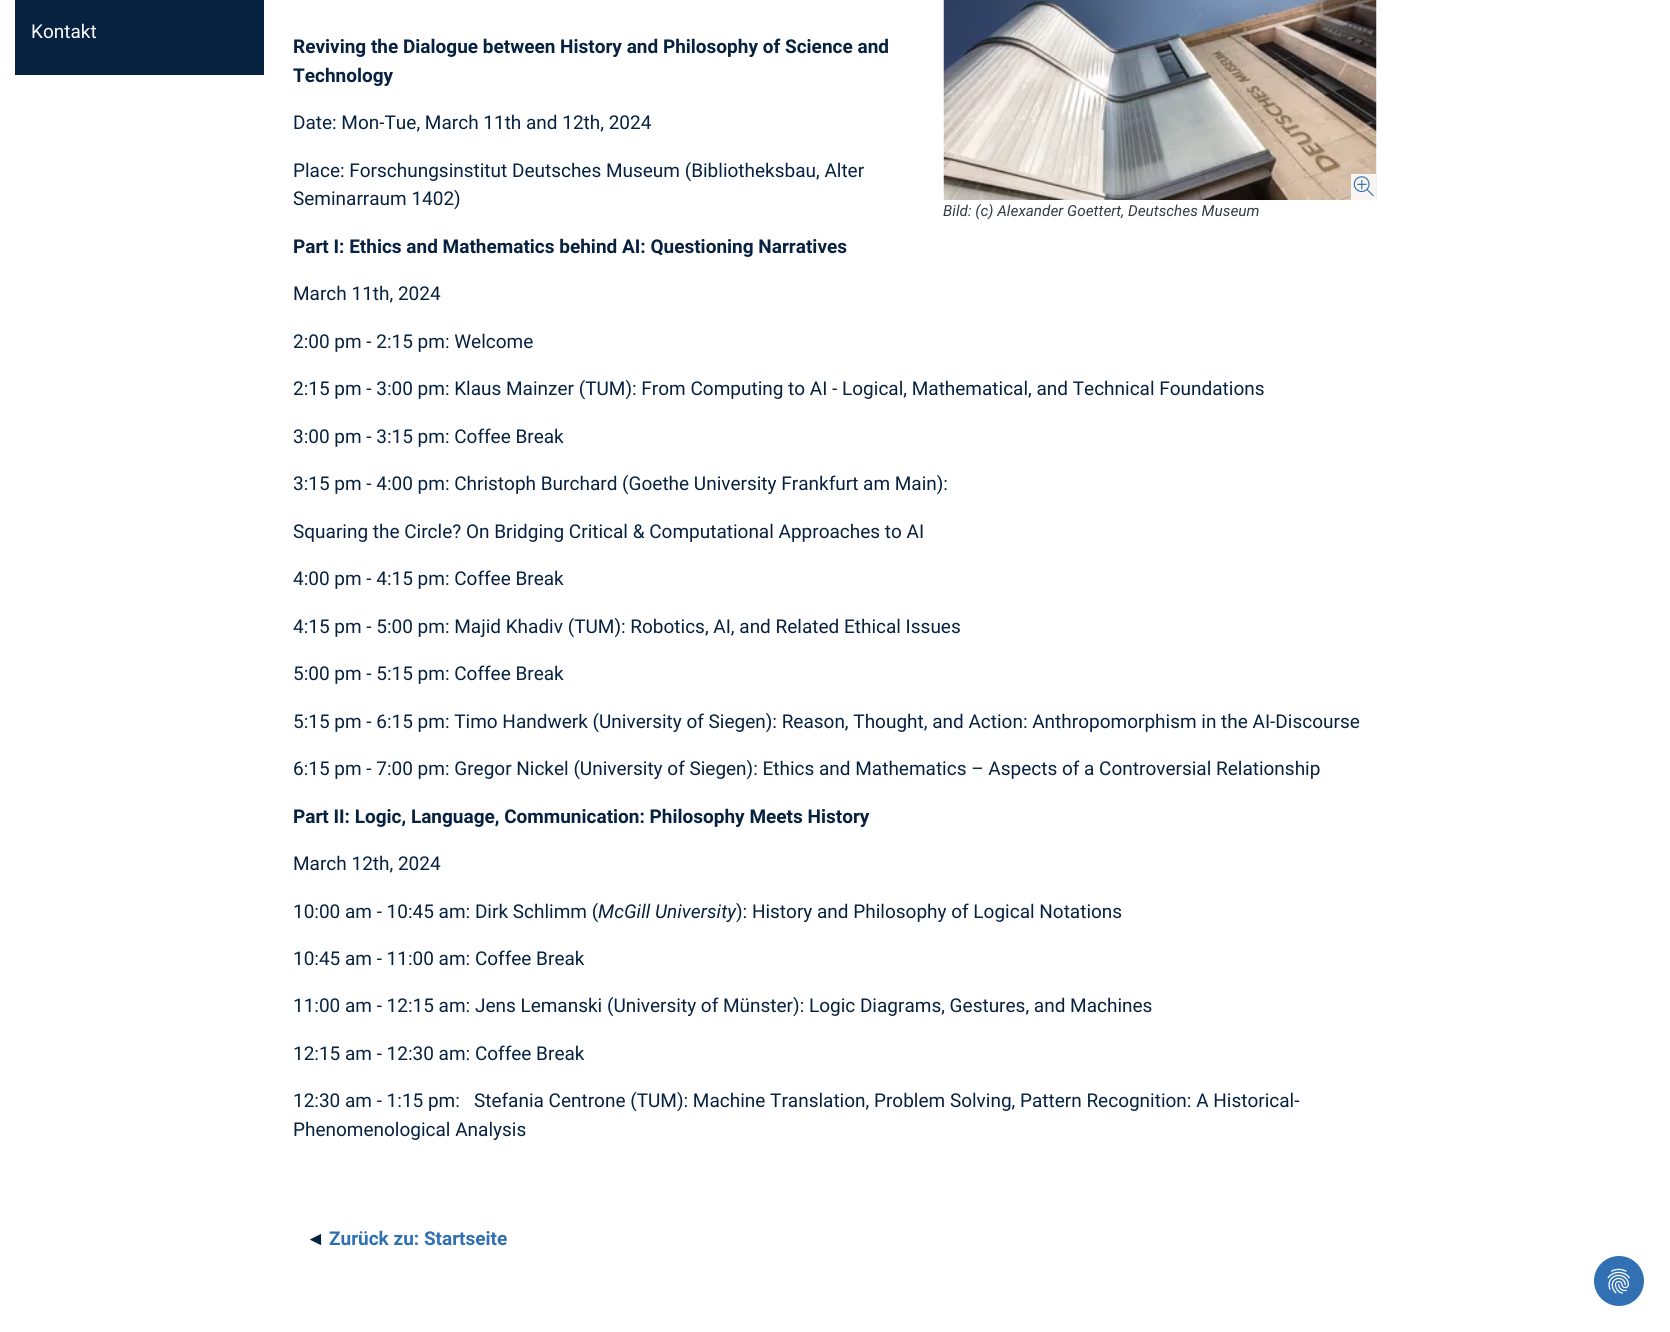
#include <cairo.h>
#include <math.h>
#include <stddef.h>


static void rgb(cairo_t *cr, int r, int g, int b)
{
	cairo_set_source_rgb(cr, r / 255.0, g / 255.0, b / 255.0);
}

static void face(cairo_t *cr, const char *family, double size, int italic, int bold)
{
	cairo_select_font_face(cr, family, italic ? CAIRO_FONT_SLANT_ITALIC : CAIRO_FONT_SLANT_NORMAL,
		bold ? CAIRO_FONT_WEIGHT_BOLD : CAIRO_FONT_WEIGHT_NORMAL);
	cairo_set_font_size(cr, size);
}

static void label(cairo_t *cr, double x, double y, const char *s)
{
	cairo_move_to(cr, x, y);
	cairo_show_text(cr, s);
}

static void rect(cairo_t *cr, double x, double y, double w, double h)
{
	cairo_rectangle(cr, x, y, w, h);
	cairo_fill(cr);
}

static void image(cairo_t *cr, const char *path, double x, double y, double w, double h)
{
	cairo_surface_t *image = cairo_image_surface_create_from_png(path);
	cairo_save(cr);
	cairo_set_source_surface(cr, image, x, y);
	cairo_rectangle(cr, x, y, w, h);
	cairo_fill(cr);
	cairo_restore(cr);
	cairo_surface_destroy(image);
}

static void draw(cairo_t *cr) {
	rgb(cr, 255, 255, 255);
	cairo_paint(cr);
	rgb(cr, 7, 33, 64);
	rect(cr, 15, 0, 249, 75);
	face(cr, "Roboto", 19, 0, 0);
	rgb(cr, 255, 255, 255);
	label(cr, 31, 38, "Kontakt");
	face(cr, "Roboto", 19, 0, 1);
	rgb(cr, 7, 33, 64);
	label(cr, 293, 53, "Reviving the Dialogue between History and Philosophy of Science and");
	label(cr, 293, 82, "Technology");
	face(cr, "Roboto", 19, 0, 0);
	label(cr, 293, 129, "Date: Mon-Tue, March 11th and 12th, 2024");
	label(cr, 293, 177, "Place: Forschungsinstitut Deutsches Museum (Bibliotheksbau, Alter");
	label(cr, 293, 205, "Seminarraum 1402)");
	face(cr, "Roboto", 19, 0, 1);
	label(cr, 293, 253, "Part I: Ethics and Mathematics behind AI: Questioning Narratives");
	face(cr, "Roboto", 19, 0, 0);
	label(cr, 293, 300, "March 11th, 2024");
	label(cr, 293, 348, "2:00 pm - 2:15 pm: Welcome");
	label(cr, 293, 395, "2:15 pm - 3:00 pm: Klaus Mainzer (TUM): From Computing to AI - Logical, Mathematical, and Technical Foundations");
	label(cr, 293, 443, "3:00 pm - 3:15 pm: Coffee Break");
	label(cr, 293, 490, "3:15 pm - 4:00 pm: Christoph Burchard (Goethe University Frankfurt am Main):");
	label(cr, 293, 538, "Squaring the Circle? On Bridging Critical & Computational Approaches to AI");
	label(cr, 293, 585, "4:00 pm - 4:15 pm: Coffee Break");
	label(cr, 293, 633, "4:15 pm - 5:00 pm: Majid Khadiv (TUM): Robotics, AI, and Related Ethical Issues");
	label(cr, 293, 680, "5:00 pm - 5:15 pm: Coffee Break");
	label(cr, 293, 728, "5:15 pm - 6:15 pm: Timo Handwerk (University of Siegen): Reason, Thought, and Action: Anthropomorphism in the AI-Discourse");
	label(cr, 293, 775, "6:15 pm - 7:00 pm: Gregor Nickel (University of Siegen): Ethics and Mathematics – Aspects of a Controversial Relationship");
	face(cr, "Roboto", 19, 0, 1);
	label(cr, 293, 823, "Part II: Logic, Language, Communication: Philosophy Meets History");
	face(cr, "Roboto", 19, 0, 0);
	label(cr, 293, 870, "March 12th, 2024");
	label(cr, 293, 918, "10:00 am - 10:45 am: Dirk Schlimm (");
	face(cr, "Roboto", 19, 1, 0);
	label(cr, 598, 918, "McGill University");
	face(cr, "Roboto", 19, 0, 0);
	label(cr, 736, 918, "): History and Philosophy of Logical Notations");
	label(cr, 293, 965, "10:45 am - 11:00 am: Coffee Break");
	label(cr, 293, 1012, "11:00 am - 12:15 am: Jens Lemanski (University of Münster): Logic Diagrams, Gestures, and Machines");
	label(cr, 293, 1060, "12:15 am - 12:30 am: Coffee Break");
	label(cr, 293, 1107, "12:30 am - 1:15 pm:   Stefania Centrone (TUM): Machine Translation, Problem Solving, Pattern Recognition: A Historical-");
	label(cr, 293, 1136, "Phenomenological Analysis");
	image(cr, "image0.png", 943, 0, 434, 200);
	cairo_set_source_rgba(cr, 1, 1, 1, 0.85);
	rect(cr, 1351, 174, 25, 26);
	image(cr, "image1.png", 1353, 176, 21, 21);
	face(cr, "Roboto", 15.2, 1, 0);
	rgb(cr, 52, 58, 64);
	label(cr, 943, 216, "Bild: (c) Alexander Goettert, Deutsches Museum");
	face(cr, "Liberation Sans", 19, 0, 0);
	rgb(cr, 7, 33, 64);
	label(cr, 306, 1245, "◄");
	face(cr, "Roboto", 19, 0, 1);
	rgb(cr, 48, 112, 179);
	label(cr, 329, 1245, "Zurück zu: Startseite");
	cairo_new_path(cr);
	cairo_arc(cr, 1619, 1281, 25, 0, 2 * M_PI);
	cairo_fill(cr);
	image(cr, "image2.png", 1607, 1268, 23, 26);
}

int main(void) {
	cairo_surface_t *surface = cairo_image_surface_create(CAIRO_FORMAT_RGB24, 1670, 1332);
	cairo_t *cr = cairo_create(surface);
	cairo_font_options_t *options = cairo_font_options_create();
	cairo_font_options_set_hint_metrics(options, CAIRO_HINT_METRICS_OFF);
	cairo_font_options_set_hint_style(options, CAIRO_HINT_STYLE_NONE);
	cairo_set_font_options(cr, options);
	cairo_set_miter_limit(cr, 4);
	draw(cr);
	cairo_surface_write_to_png(surface, "render.png");
	cairo_font_options_destroy(options);
	cairo_destroy(cr);
	cairo_surface_destroy(surface);
	return 0;
}
